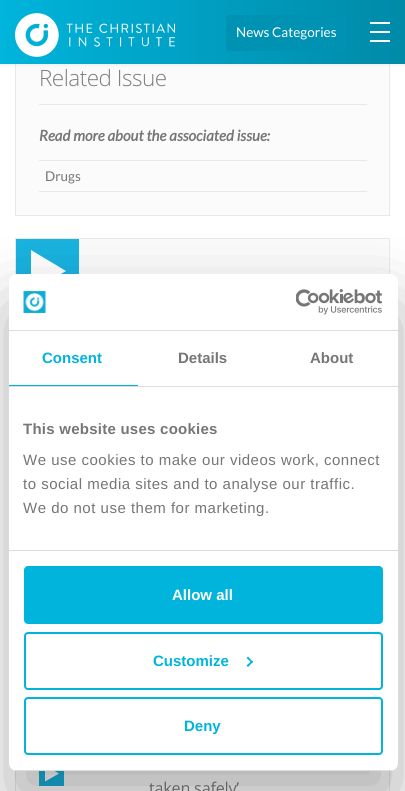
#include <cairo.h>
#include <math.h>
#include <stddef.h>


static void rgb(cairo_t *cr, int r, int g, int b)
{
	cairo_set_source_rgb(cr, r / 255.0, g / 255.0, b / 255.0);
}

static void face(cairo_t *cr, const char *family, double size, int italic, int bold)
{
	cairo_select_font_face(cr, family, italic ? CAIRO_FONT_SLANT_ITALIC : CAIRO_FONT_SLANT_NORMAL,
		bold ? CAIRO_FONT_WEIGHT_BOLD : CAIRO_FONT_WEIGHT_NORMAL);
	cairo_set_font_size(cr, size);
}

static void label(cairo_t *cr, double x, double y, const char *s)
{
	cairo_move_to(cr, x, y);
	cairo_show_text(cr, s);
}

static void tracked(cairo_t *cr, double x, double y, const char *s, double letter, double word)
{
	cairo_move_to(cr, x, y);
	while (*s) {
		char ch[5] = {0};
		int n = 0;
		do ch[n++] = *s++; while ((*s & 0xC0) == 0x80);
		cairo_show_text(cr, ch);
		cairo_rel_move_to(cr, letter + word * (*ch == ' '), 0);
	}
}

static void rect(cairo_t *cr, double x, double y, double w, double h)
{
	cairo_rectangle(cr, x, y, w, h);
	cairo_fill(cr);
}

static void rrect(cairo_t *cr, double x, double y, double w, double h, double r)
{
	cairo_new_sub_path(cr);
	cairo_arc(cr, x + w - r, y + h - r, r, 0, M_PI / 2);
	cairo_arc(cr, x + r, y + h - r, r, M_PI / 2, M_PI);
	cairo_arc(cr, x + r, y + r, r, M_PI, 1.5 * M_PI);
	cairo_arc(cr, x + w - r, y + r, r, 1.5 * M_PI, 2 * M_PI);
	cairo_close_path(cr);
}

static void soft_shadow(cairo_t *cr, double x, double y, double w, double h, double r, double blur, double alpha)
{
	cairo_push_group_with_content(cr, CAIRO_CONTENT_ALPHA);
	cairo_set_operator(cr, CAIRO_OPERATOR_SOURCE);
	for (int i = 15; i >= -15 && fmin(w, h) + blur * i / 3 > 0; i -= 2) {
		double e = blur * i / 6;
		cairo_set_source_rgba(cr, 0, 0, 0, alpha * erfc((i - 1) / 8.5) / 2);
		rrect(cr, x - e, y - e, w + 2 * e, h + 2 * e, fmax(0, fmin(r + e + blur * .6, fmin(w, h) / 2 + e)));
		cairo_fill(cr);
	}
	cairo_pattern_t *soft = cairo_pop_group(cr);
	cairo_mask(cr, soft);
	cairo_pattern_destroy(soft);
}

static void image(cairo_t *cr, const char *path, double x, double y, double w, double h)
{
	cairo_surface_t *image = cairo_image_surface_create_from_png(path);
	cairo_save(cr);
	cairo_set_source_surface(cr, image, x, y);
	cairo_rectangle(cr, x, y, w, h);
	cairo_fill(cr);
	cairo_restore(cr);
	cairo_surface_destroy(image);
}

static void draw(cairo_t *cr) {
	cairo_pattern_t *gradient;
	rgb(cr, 255, 255, 255);
	cairo_paint(cr);
	rgb(cr, 251, 251, 251);
	rect(cr, 16, 64, 373, 151);
	cairo_rectangle(cr, 15.5, 41.5, 374, 174);
	rgb(cr, 232, 232, 232);
	cairo_set_line_width(cr, 1);
	cairo_stroke(cr);
	rgb(cr, 0, 0, 0);
	soft_shadow(cr, 0, 0, 405, 64, 0, 2.5, 0.1);
	gradient = cairo_pattern_create_linear(0, 32, 405, 32);
	cairo_pattern_add_color_stop_rgba(gradient, 0, 0, 0.706, 0.859, 1);
	cairo_pattern_add_color_stop_rgba(gradient, 1, 0, 0.541, 0.659, 1);
	cairo_set_source(cr, gradient);
	cairo_pattern_destroy(gradient);
	rect(cr, 0, 0, 405, 64);
	image(cr, "image0.png", 15, 13, 160, 44);
	rgb(cr, 255, 255, 255);
	rect(cr, 370, 22, 20, 2);
	rect(cr, 370, 31, 20, 2);
	rect(cr, 370, 40, 20, 2);
	rgb(cr, 0, 146, 178);
	rrect(cr, 226, 15, 121, 36, 4);
	cairo_fill(cr);
	face(cr, "Lato", 13.5, 0, 0);
	rgb(cr, 255, 255, 255);
	label(cr, 236, 37, "News Categories");
	rgb(cr, 232, 232, 232);
	rect(cr, 39, 104, 328, 1);
	face(cr, "Open Sans Light", 22.5, 0, 0);
	rgb(cr, 125, 125, 125);
	tracked(cr, 39, 86, "Related Issue", -0.5, 0);
	face(cr, "Lato", 15, 1, 1);
	rgb(cr, 118, 118, 118);
	label(cr, 39, 141, "Read more about the associated issue:");
	rgb(cr, 232, 232, 232);
	rect(cr, 39, 160, 328, 1);
	rect(cr, 39, 191, 328, 1);
	face(cr, "Lato", 13.5, 0, 0);
	rgb(cr, 118, 118, 118);
	label(cr, 45, 181, "Drugs");
	rgb(cr, 251, 251, 251);
	rect(cr, 79, 239, 310, 35);
	cairo_rectangle(cr, 15.5, 238.5, 374, 335);
	rgb(cr, 232, 232, 232);
	cairo_stroke(cr);
	rgb(cr, 25, 178, 222);
	rect(cr, 16, 239, 63, 36);
	rgb(cr, 255, 255, 255);
	cairo_new_path(cr);
	cairo_move_to(cr, 66, 271);
	cairo_line_to(cr, 31, 291);
	cairo_line_to(cr, 31, 250);
	cairo_close_path(cr);
	cairo_fill(cr);
	rgb(cr, 251, 251, 251);
	rect(cr, 16, 770, 373, 21);
	cairo_rectangle(cr, 15.5, 596.5, 374, 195);
	rgb(cr, 232, 232, 232);
	cairo_stroke(cr);
	rgb(cr, 25, 178, 222);
	rect(cr, 39, 771, 25, 15);
	rgb(cr, 255, 255, 255);
	cairo_new_path(cr);
	cairo_move_to(cr, 59, 773.5);
	cairo_line_to(cr, 45, 781.5);
	cairo_line_to(cr, 45, 765.5);
	cairo_close_path(cr);
	cairo_fill(cr);
	face(cr, "Open Sans", 16.25, 0, 0);
	rgb(cr, 125, 125, 125);
	tracked(cr, 149, 794, "taken safely’", -0.25, 0);
	rgb(cr, 0, 0, 0);
	soft_shadow(cr, 9, 306, 389, 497, 8, 34, 0.3);
	rgb(cr, 255, 255, 255);
	rrect(cr, 9, 274, 389, 497, 8);
	cairo_fill(cr);
	rgb(cr, 221, 221, 221);
	rect(cr, 9, 330, 389, 1);
	image(cr, "image1.png", 23, 291, 23, 22);
	image(cr, "image2.png", 296, 289, 87, 26);
	rect(cr, 9, 386, 389, 1);
	rgb(cr, 0, 180, 219);
	rect(cr, 9, 385, 129, 1);
	face(cr, "Liberation Sans", 15, 0, 1);
	label(cr, 42, 363, "Consent");
	rgb(cr, 118, 118, 118);
	label(cr, 178, 363, "Details");
	label(cr, 310, 363, "About");
	rgb(cr, 221, 221, 221);
	rect(cr, 9, 550, 389, 1);
	rgb(cr, 118, 118, 118);
	tracked(cr, 23, 434, "This website uses cookies", 0.25, 0);
	face(cr, "Liberation Sans", 15, 0, 0);
	tracked(cr, 23, 465, "We use cookies to make our videos work, connect", 0.5, 0);
	tracked(cr, 23, 489, "to social media sites and to analyse our traffic.", 0.5, 0);
	tracked(cr, 23, 513, "We do not use them for marketing.", 0.5, 0);
	cairo_save(cr);
	rrect(cr, 9, 274, 389, 497, 8);
	cairo_clip(cr);
	rgb(cr, 221, 221, 221);
	rect(cr, 9, 770, 389, 1);
	cairo_restore(cr);
	rgb(cr, 0, 180, 219);
	rrect(cr, 25, 567, 357, 56, 3);
	cairo_fill_preserve(cr);
	cairo_set_line_width(cr, 2);
	cairo_stroke(cr);
	face(cr, "Liberation Sans", 15, 0, 1);
	rgb(cr, 255, 255, 255);
	label(cr, 172, 600, "Allow all");
	rrect(cr, 25, 633, 357, 56, 3);
	rgb(cr, 0, 180, 219);
	cairo_stroke(cr);
	label(cr, 153, 666, "Customize");
	cairo_new_path(cr);
	cairo_move_to(cr, 248, 656.5);
	cairo_line_to(cr, 253, 662);
	cairo_line_to(cr, 252, 663);
	cairo_line_to(cr, 246.5, 658);
	cairo_close_path(cr);
	cairo_fill(cr);
	cairo_new_path(cr);
	cairo_move_to(cr, 252, 660.5);
	cairo_line_to(cr, 253, 662);
	cairo_line_to(cr, 248, 667);
	cairo_line_to(cr, 246.5, 665.5);
	cairo_close_path(cr);
	cairo_fill(cr);
	rrect(cr, 25, 698, 357, 56, 3);
	cairo_stroke(cr);
	label(cr, 184, 731, "Deny");
}

int main(void) {
	cairo_surface_t *surface = cairo_image_surface_create(CAIRO_FORMAT_RGB24, 405, 791);
	cairo_t *cr = cairo_create(surface);
	cairo_font_options_t *options = cairo_font_options_create();
	cairo_font_options_set_hint_metrics(options, CAIRO_HINT_METRICS_OFF);
	cairo_font_options_set_hint_style(options, CAIRO_HINT_STYLE_NONE);
	cairo_set_font_options(cr, options);
	cairo_set_miter_limit(cr, 4);
	draw(cr);
	cairo_surface_write_to_png(surface, "render.png");
	cairo_font_options_destroy(options);
	cairo_destroy(cr);
	cairo_surface_destroy(surface);
	return 0;
}
